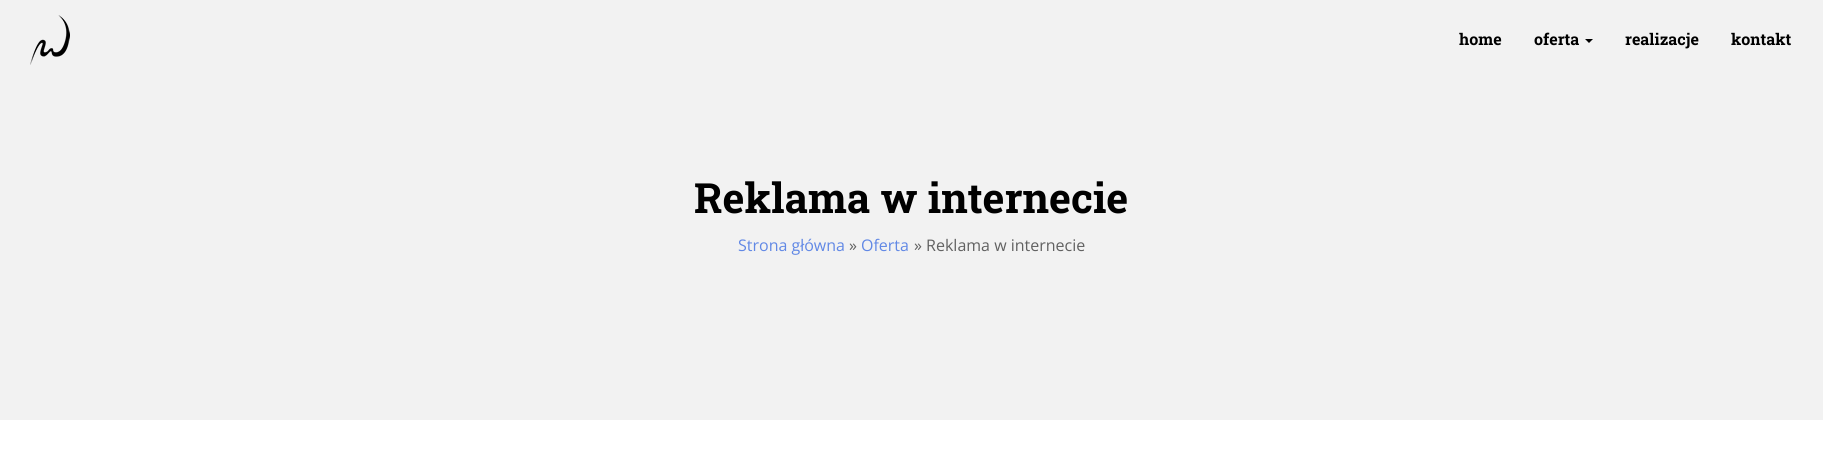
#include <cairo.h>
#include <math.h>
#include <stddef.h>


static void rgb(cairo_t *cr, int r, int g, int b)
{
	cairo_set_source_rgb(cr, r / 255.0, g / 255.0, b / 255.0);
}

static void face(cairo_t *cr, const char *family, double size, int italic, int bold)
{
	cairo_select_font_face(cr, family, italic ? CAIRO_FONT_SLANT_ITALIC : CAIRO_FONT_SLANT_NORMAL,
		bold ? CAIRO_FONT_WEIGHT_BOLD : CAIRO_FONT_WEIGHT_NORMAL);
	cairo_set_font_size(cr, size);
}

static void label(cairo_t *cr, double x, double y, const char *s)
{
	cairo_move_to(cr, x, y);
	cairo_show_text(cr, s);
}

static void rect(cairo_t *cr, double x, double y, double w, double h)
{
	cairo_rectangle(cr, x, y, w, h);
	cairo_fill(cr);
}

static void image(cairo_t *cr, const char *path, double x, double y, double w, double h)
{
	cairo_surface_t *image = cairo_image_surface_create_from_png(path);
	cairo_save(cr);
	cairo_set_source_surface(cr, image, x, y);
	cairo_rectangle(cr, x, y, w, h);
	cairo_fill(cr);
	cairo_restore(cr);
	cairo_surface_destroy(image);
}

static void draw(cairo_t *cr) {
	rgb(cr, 255, 255, 255);
	cairo_paint(cr);
	rgb(cr, 242, 242, 242);
	rect(cr, 0, 0, 1823, 420);
	image(cr, "image0.png", 30, 15, 40, 50);
	face(cr, "Roboto Slab", 16, 0, 1);
	rgb(cr, 0, 0, 0);
	label(cr, 1459, 45, "home");
	label(cr, 1534, 45, "oferta");
	cairo_new_path(cr);
	cairo_move_to(cr, 1585, 39);
	cairo_line_to(cr, 1593, 39);
	cairo_line_to(cr, 1589, 43);
	cairo_close_path(cr);
	cairo_fill(cr);
	label(cr, 1625, 45, "realizacje");
	label(cr, 1731, 45, "kontakt");
	face(cr, "Roboto Slab", 41.6, 0, 1);
	label(cr, 694, 213, "Reklama w internecie");
	face(cr, "Open Sans", 16, 0, 0);
	rgb(cr, 97, 136, 229);
	label(cr, 738, 251, "Strona główna");
	rgb(cr, 97, 97, 97);
	label(cr, 849, 251, "»");
	rgb(cr, 97, 136, 229);
	label(cr, 861, 251, "Oferta");
	rgb(cr, 97, 97, 97);
	label(cr, 914, 251, "» Reklama w internecie");
}

int main(void) {
	cairo_surface_t *surface = cairo_image_surface_create(CAIRO_FORMAT_RGB24, 1823, 466);
	cairo_t *cr = cairo_create(surface);
	cairo_font_options_t *options = cairo_font_options_create();
	cairo_font_options_set_hint_metrics(options, CAIRO_HINT_METRICS_OFF);
	cairo_font_options_set_hint_style(options, CAIRO_HINT_STYLE_NONE);
	cairo_set_font_options(cr, options);
	cairo_set_miter_limit(cr, 4);
	draw(cr);
	cairo_surface_write_to_png(surface, "render.png");
	cairo_font_options_destroy(options);
	cairo_destroy(cr);
	cairo_surface_destroy(surface);
	return 0;
}
